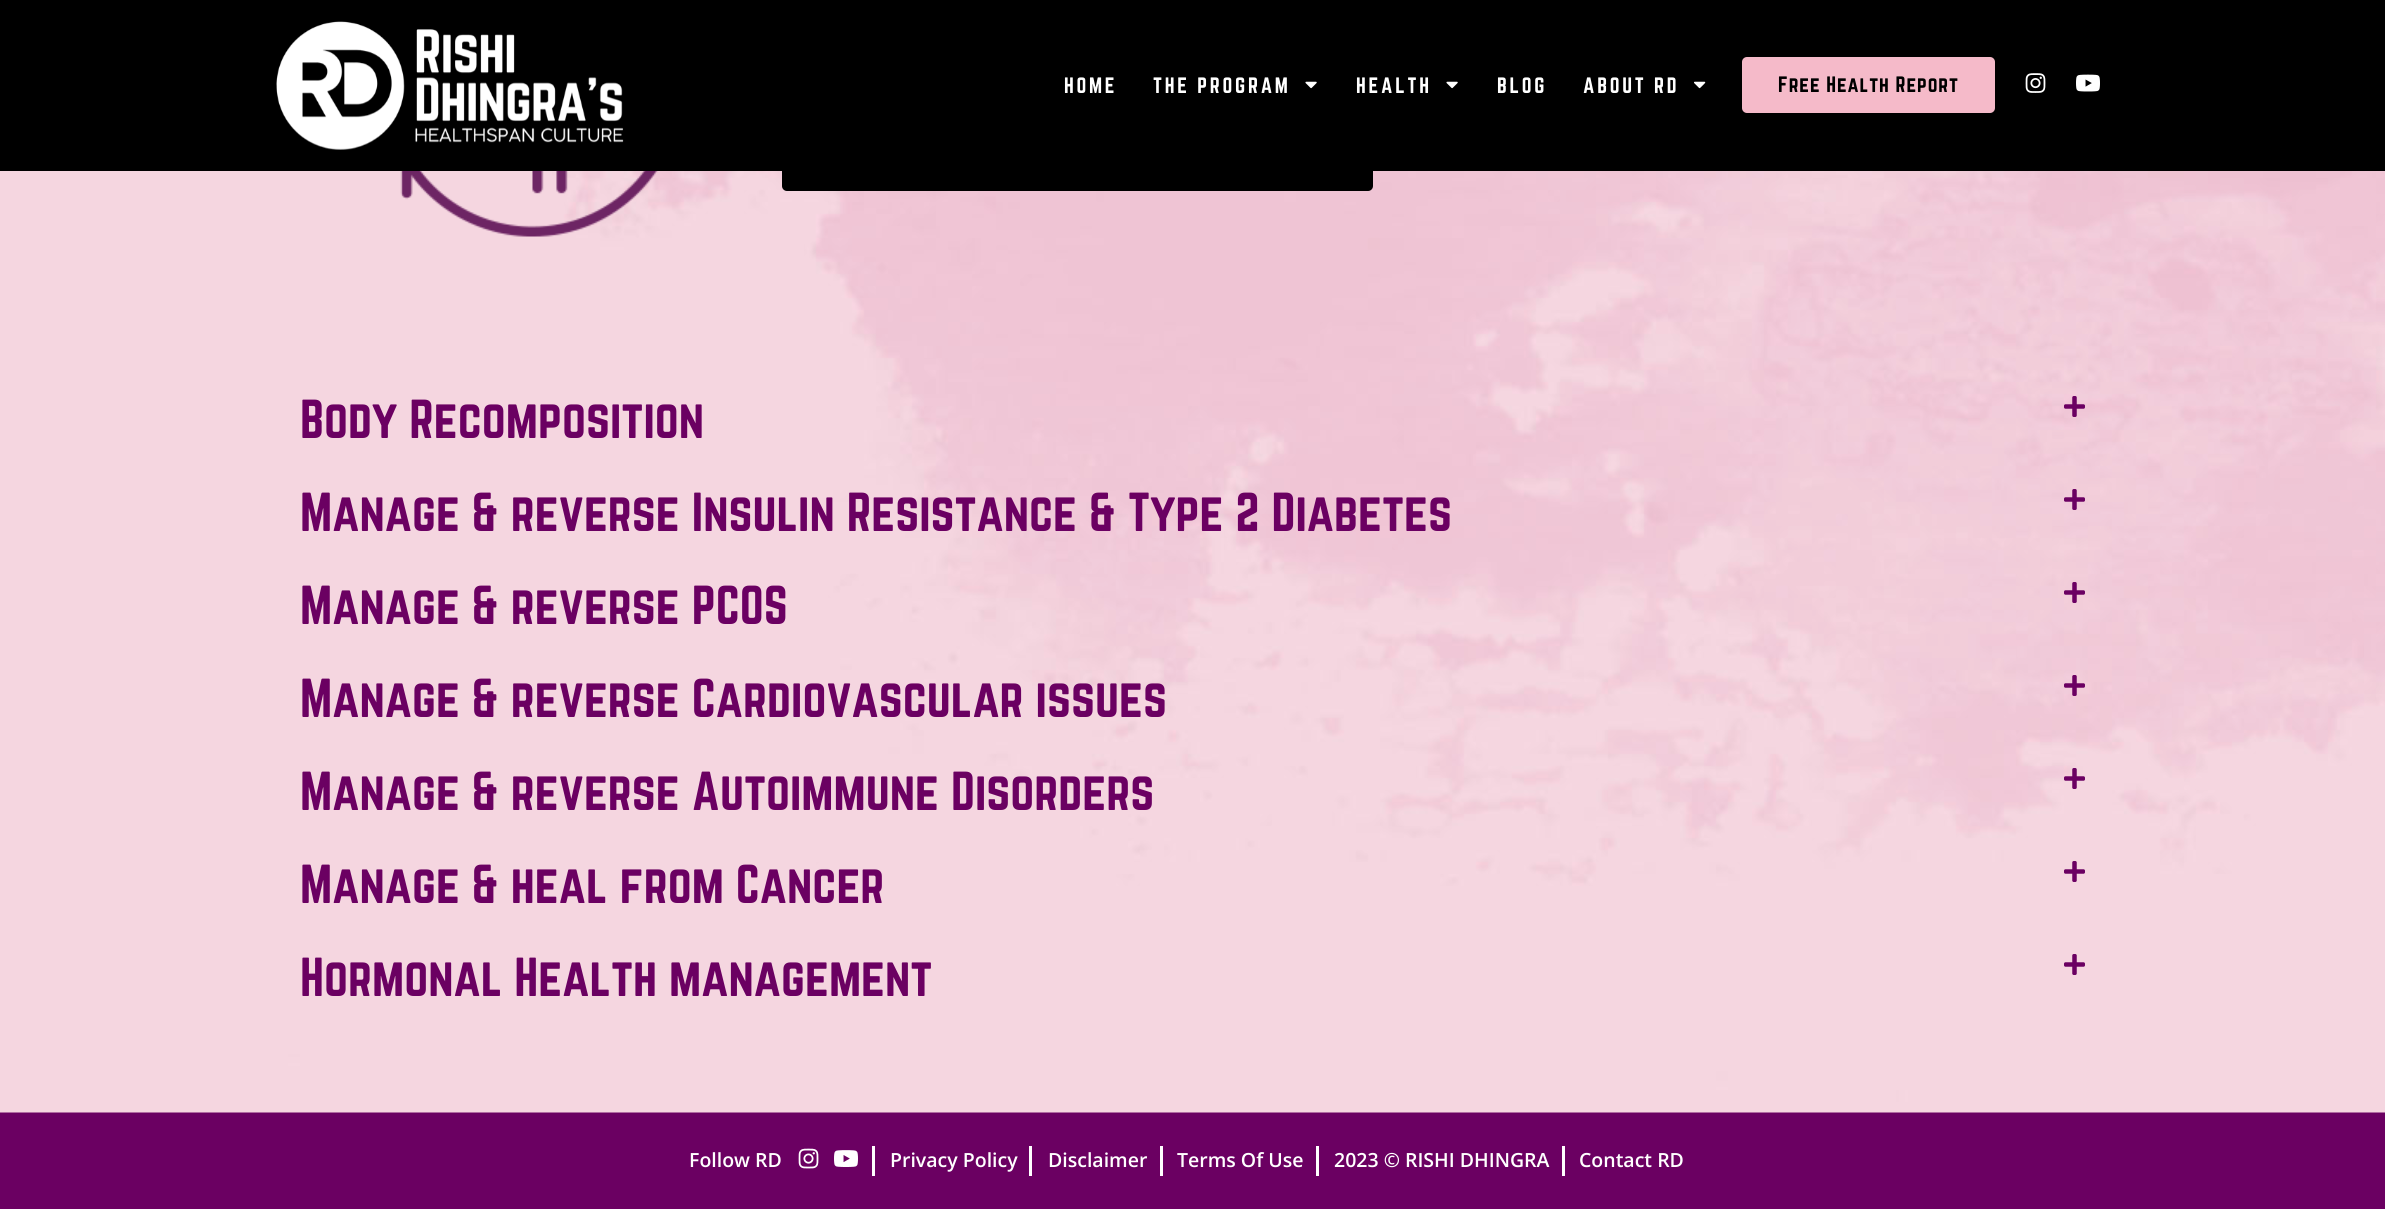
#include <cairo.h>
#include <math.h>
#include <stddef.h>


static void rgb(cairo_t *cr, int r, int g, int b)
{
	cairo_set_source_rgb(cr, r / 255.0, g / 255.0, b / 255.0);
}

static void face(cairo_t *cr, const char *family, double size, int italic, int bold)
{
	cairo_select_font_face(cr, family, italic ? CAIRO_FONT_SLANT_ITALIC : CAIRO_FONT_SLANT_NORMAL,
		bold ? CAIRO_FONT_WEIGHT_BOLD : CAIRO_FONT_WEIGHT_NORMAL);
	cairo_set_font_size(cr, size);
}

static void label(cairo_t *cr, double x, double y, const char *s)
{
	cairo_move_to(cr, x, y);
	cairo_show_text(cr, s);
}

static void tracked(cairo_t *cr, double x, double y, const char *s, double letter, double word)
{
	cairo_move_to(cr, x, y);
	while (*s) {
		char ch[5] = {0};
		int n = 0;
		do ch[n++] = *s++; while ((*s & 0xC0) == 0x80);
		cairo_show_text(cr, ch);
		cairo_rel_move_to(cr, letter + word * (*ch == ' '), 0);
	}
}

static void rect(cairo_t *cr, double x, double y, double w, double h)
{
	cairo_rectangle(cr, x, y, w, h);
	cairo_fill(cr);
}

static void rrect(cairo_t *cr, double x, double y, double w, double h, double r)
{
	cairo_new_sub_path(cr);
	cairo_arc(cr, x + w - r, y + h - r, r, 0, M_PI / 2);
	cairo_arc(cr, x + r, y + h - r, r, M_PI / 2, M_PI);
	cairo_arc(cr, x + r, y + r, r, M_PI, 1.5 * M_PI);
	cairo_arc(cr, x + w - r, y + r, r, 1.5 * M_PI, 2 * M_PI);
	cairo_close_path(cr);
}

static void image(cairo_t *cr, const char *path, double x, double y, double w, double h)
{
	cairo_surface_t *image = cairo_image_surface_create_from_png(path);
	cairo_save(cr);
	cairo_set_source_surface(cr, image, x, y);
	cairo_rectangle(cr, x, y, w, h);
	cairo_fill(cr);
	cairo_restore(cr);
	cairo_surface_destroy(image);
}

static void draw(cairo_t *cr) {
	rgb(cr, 107, 0, 98);
	cairo_paint(cr);
	image(cr, "image5.png", 0, 171, 2385, 942);
	rgb(cr, 0, 0, 0);
	rrect(cr, 782, 128, 591, 63, 5);
	cairo_fill(cr);
	rect(cr, 0, 0, 2385, 171);
	image(cr, "image0.png", 276, 21, 348, 129);
	face(cr, "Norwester", 19.5, 0, 0);
	rgb(cr, 255, 255, 255);
	tracked(cr, 1064, 93, "HOME", 2.75, 0);
	tracked(cr, 1153, 93, "THE PROGRAM", 2.75, 0);
	image(cr, "image1.png", 1305, 81, 12, 8);
	tracked(cr, 1356, 93, "HEALTH", 2.75, 0);
	image(cr, "image1.png", 1446, 81, 12, 8);
	tracked(cr, 1497, 93, "BLOG", 2.75, 0);
	tracked(cr, 1583, 93, "ABOUT RD", 2.75, 0);
	image(cr, "image2.png", 1694, 81, 12, 8);
	rgb(cr, 245, 186, 201);
	rrect(cr, 1742, 57, 253, 56, 5);
	cairo_fill(cr);
	rgb(cr, 0, 0, 0);
	tracked(cr, 1778, 92, "Free Health Report", 0.9, 0);
	image(cr, "image3.png", 2025, 73, 21, 20);
	image(cr, "image4.png", 2076, 74, 24, 18);
	image(cr, "image6.png", 400, 171, 258, 66);
	face(cr, "Norwester", 48, 0, 0);
	rgb(cr, 107, 0, 98);
	label(cr, 300, 438, "Body Recomposition");
	image(cr, "image7.png", 2064, 396, 21, 21);
	label(cr, 300, 531, "Manage & reverse Insulin Resistance & Type 2 Diabetes");
	image(cr, "image8.png", 2064, 489, 21, 21);
	label(cr, 300, 624, "Manage & reverse PCOS");
	image(cr, "image9.png", 2064, 582, 21, 21);
	label(cr, 300, 717, "Manage & reverse Cardiovascular issues");
	image(cr, "image10.png", 2064, 675, 21, 21);
	label(cr, 300, 810, "Manage & reverse Autoimmune Disorders");
	image(cr, "image11.png", 2064, 768, 21, 21);
	label(cr, 300, 903, "Manage & heal from Cancer");
	image(cr, "image12.png", 2064, 861, 21, 21);
	label(cr, 300, 996, "Hormonal Health management");
	image(cr, "image12.png", 2064, 954, 21, 21);
	face(cr, "Open Sans SemiBold", 19.5, 0, 0);
	rgb(cr, 255, 255, 255);
	label(cr, 689, 1167, "Follow RD");
	image(cr, "image13.png", 798, 1148, 21, 21);
	image(cr, "image14.png", 834, 1150, 24, 17);
	rect(cr, 872, 1146, 3, 30);
	label(cr, 890, 1167, "Privacy Policy");
	rect(cr, 1029, 1146, 3, 30);
	label(cr, 1048, 1167, "Disclaimer");
	rect(cr, 1160, 1146, 3, 30);
	label(cr, 1177, 1167, "Terms Of Use");
	rect(cr, 1316, 1146, 3, 30);
	label(cr, 1334, 1167, "2023 © RISHI DHINGRA");
	rect(cr, 1562, 1146, 3, 30);
	label(cr, 1579, 1167, "Contact RD");
}

int main(void) {
	cairo_surface_t *surface = cairo_image_surface_create(CAIRO_FORMAT_RGB24, 2385, 1209);
	cairo_t *cr = cairo_create(surface);
	cairo_font_options_t *options = cairo_font_options_create();
	cairo_font_options_set_hint_metrics(options, CAIRO_HINT_METRICS_OFF);
	cairo_font_options_set_hint_style(options, CAIRO_HINT_STYLE_NONE);
	cairo_set_font_options(cr, options);
	cairo_set_miter_limit(cr, 4);
	draw(cr);
	cairo_surface_write_to_png(surface, "render.png");
	cairo_font_options_destroy(options);
	cairo_destroy(cr);
	cairo_surface_destroy(surface);
	return 0;
}
